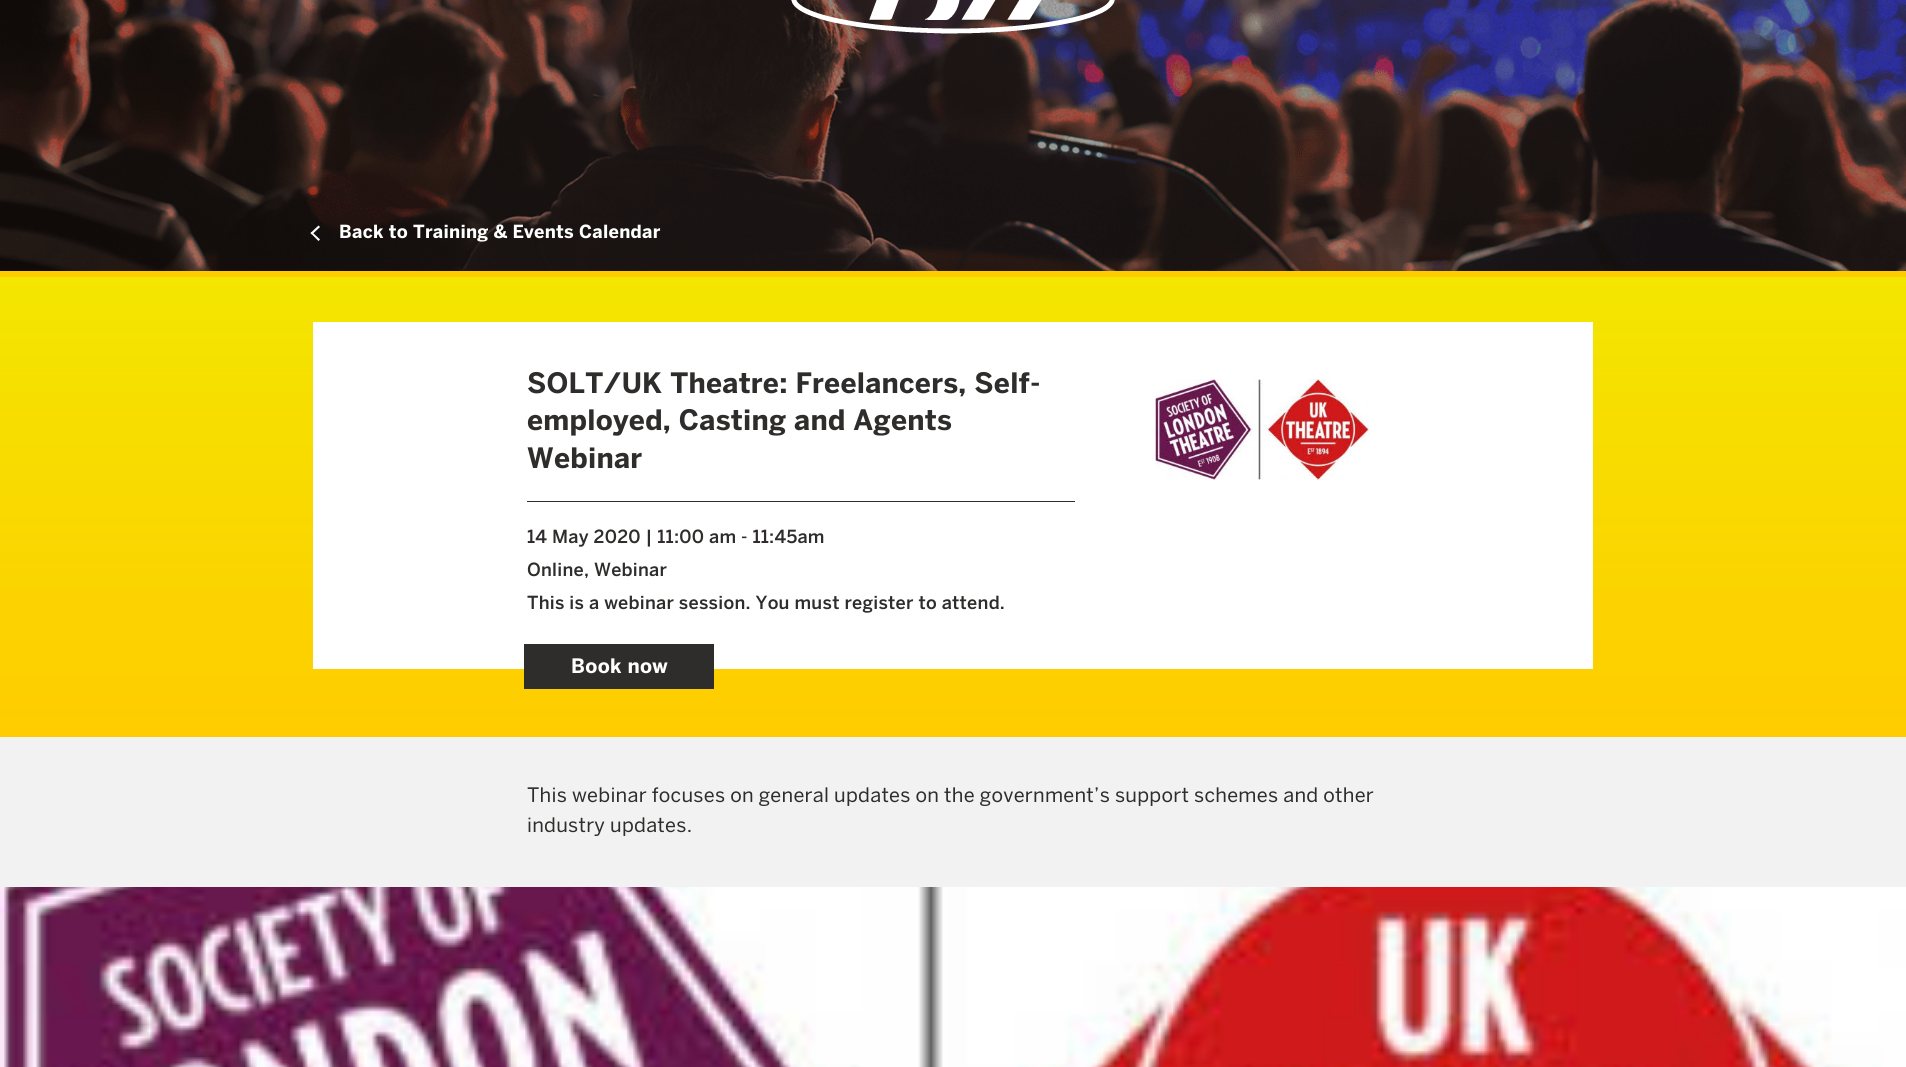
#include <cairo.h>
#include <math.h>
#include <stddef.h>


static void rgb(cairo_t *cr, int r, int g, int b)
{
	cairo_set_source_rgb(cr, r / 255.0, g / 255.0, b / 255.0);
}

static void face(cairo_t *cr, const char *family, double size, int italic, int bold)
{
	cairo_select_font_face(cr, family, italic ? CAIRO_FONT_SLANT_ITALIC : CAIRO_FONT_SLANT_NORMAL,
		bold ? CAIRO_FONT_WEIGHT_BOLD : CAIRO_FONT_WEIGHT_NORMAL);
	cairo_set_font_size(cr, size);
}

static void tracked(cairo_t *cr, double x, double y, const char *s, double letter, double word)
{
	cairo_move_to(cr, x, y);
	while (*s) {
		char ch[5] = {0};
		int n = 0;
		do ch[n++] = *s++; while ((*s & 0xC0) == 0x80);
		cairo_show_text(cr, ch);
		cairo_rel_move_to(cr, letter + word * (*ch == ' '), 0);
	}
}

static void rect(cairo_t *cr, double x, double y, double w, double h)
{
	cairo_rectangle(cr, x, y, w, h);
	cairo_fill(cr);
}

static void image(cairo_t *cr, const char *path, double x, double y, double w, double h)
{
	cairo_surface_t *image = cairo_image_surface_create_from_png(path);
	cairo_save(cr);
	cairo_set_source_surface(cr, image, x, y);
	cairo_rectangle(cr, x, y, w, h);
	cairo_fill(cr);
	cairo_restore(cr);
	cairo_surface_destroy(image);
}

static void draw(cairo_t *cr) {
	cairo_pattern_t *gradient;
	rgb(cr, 242, 242, 242);
	cairo_paint(cr);
	image(cr, "image1.png", 0, 0, 1906, 271);
	image(cr, "image0.png", 791, 0, 324, 34);
	rgb(cr, 255, 204, 0);
	rect(cr, 0, 271, 1906, 6);
	rgb(cr, 255, 255, 255);
	cairo_new_path(cr);
	cairo_move_to(cr, 310.5, 233);
	cairo_line_to(cr, 318.5, 225.5);
	cairo_line_to(cr, 320, 227);
	cairo_line_to(cr, 312, 234.5);
	cairo_close_path(cr);
	cairo_fill(cr);
	cairo_new_path(cr);
	cairo_move_to(cr, 310.5, 233);
	cairo_line_to(cr, 312, 232);
	cairo_line_to(cr, 320, 239.5);
	cairo_line_to(cr, 318.5, 241);
	cairo_close_path(cr);
	cairo_fill(cr);
	face(cr, "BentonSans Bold", 18, 0, 1);
	tracked(cr, 339, 238, "Back to Training & Events Calendar", 0.25, 0);
	gradient = cairo_pattern_create_linear(953, 277, 953, 737);
	cairo_pattern_add_color_stop_rgba(gradient, 0, 0.953, 0.902, 0, 1);
	cairo_pattern_add_color_stop_rgba(gradient, 1, 1, 0.8, 0, 1);
	cairo_set_source(cr, gradient);
	cairo_pattern_destroy(gradient);
	rect(cr, 0, 277, 1906, 460);
	rgb(cr, 255, 255, 255);
	rect(cr, 313, 322, 1280, 347);
	rgb(cr, 46, 45, 44);
	rect(cr, 527, 501, 548, 1);
	face(cr, "BentonSans Bold", 27.9, 0, 1);
	tracked(cr, 527, 393, "SOLT/UK Theatre: Freelancers, Self-", 0.25, 0);
	tracked(cr, 527, 430, "employed, Casting and Agents", 0.25, 0);
	tracked(cr, 527, 468, "Webinar", 0.25, 0);
	face(cr, "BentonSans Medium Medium", 18, 0, 0);
	tracked(cr, 527, 543, "14 May 2020 | 11:00 am - 11:45am", 0.25, 0);
	tracked(cr, 527, 576, "Online, Webinar", 0.25, 0);
	tracked(cr, 527, 609, "This is a webinar session. You must register to attend.", 0.25, 0);
	image(cr, "image2.png", 1155, 379, 214, 101);
	rect(cr, 524, 644, 190, 45);
	face(cr, "BentonSans Bold", 19.8, 0, 1);
	rgb(cr, 255, 255, 255);
	tracked(cr, 571, 673, "Book now", 0.25, 0);
	face(cr, "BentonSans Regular", 19.8, 0, 0);
	rgb(cr, 46, 45, 44);
	tracked(cr, 527, 802, "This webinar focuses on general updates on the government’s support schemes and other", 0.25, 0);
	tracked(cr, 527, 832, "industry updates.", 0.25, 0);
	image(cr, "image3.png", 0, 887, 1906, 180);
}

int main(void) {
	cairo_surface_t *surface = cairo_image_surface_create(CAIRO_FORMAT_RGB24, 1906, 1067);
	cairo_t *cr = cairo_create(surface);
	cairo_font_options_t *options = cairo_font_options_create();
	cairo_font_options_set_hint_metrics(options, CAIRO_HINT_METRICS_OFF);
	cairo_font_options_set_hint_style(options, CAIRO_HINT_STYLE_NONE);
	cairo_set_font_options(cr, options);
	cairo_set_miter_limit(cr, 4);
	draw(cr);
	cairo_surface_write_to_png(surface, "render.png");
	cairo_font_options_destroy(options);
	cairo_destroy(cr);
	cairo_surface_destroy(surface);
	return 0;
}
